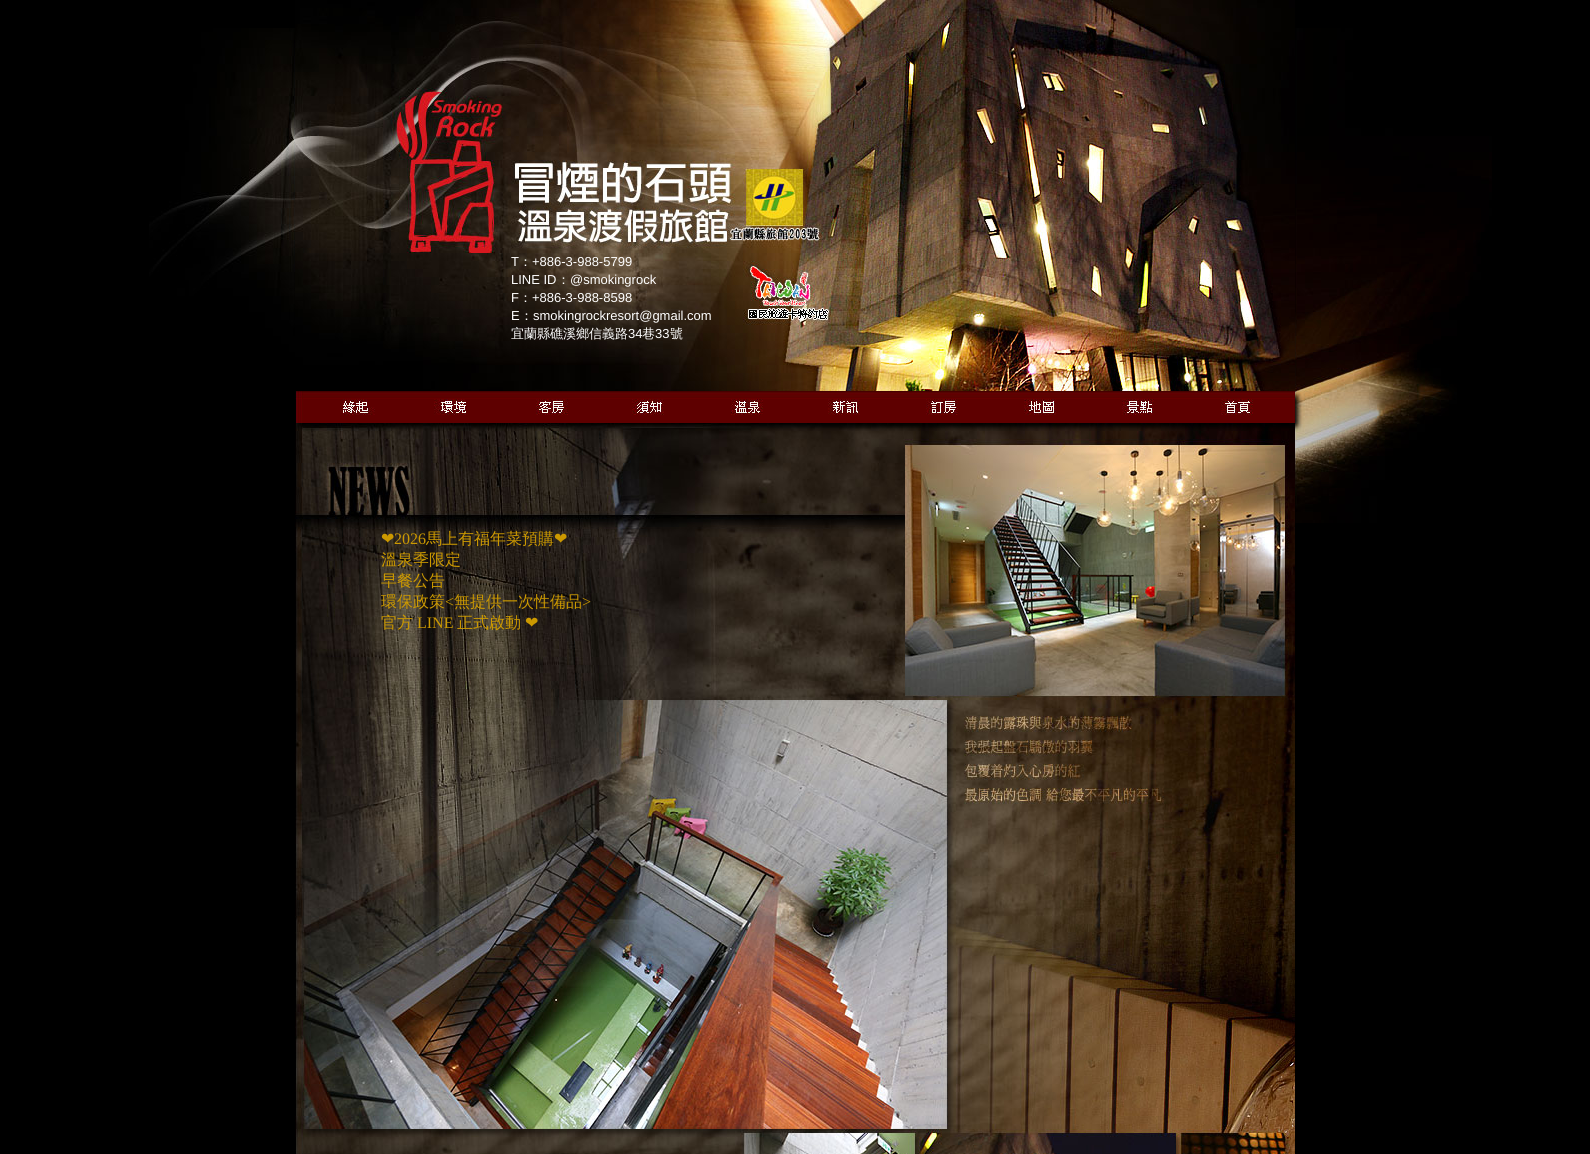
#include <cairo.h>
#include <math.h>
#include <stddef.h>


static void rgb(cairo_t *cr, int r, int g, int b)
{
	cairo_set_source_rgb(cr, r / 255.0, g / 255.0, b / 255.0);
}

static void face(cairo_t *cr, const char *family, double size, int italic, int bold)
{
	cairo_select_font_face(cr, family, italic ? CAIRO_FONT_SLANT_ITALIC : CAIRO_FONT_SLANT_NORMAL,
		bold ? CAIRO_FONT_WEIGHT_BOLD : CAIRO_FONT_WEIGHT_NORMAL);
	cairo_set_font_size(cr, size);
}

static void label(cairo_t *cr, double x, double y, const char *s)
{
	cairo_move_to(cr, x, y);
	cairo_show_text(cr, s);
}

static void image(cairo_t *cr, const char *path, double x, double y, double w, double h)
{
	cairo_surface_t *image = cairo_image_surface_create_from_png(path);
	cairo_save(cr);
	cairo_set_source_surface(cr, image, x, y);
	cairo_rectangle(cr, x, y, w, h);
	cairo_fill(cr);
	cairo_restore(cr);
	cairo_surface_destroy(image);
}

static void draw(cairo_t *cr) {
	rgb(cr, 0, 0, 0);
	cairo_paint(cr);
	image(cr, "image0.png", 149, 28, 1343, 495);
	image(cr, "image1.png", 295, 0, 586, 253);
	image(cr, "image2.png", 881, 0, 414, 253);
	image(cr, "image3.png", 295, 253, 586, 138);
	face(cr, "Liberation Sans", 13, 0, 0);
	rgb(cr, 255, 255, 255);
	label(cr, 511, 266, "T");
	face(cr, "WenQuanYi Zen Hei Medium", 13, 0, 0);
	label(cr, 519, 266, "：");
	face(cr, "Liberation Sans", 13, 0, 0);
	label(cr, 532, 266, "+886-3-988-5799");
	label(cr, 511, 284, "LINE ID");
	face(cr, "WenQuanYi Zen Hei Medium", 13, 0, 0);
	label(cr, 557, 284, "：");
	face(cr, "Liberation Sans", 13, 0, 0);
	label(cr, 570, 284, "@smokingrock");
	label(cr, 511, 302, "F");
	face(cr, "WenQuanYi Zen Hei Medium", 13, 0, 0);
	label(cr, 519, 302, "：");
	face(cr, "Liberation Sans", 13, 0, 0);
	label(cr, 532, 302, "+886-3-988-8598");
	label(cr, 511, 320, "E");
	face(cr, "WenQuanYi Zen Hei Medium", 13, 0, 0);
	label(cr, 520, 320, "：");
	face(cr, "Liberation Sans", 13, 0, 0);
	label(cr, 533, 320, "smokingrockresort@gmail.com");
	face(cr, "WenQuanYi Zen Hei Medium", 13, 0, 0);
	label(cr, 511, 338, "宜蘭縣礁溪鄉信義路");
	face(cr, "Liberation Sans", 13, 0, 0);
	label(cr, 628, 338, "34");
	face(cr, "WenQuanYi Zen Hei Medium", 13, 0, 0);
	label(cr, 642, 338, "巷");
	face(cr, "Liberation Sans", 13, 0, 0);
	label(cr, 655, 338, "33");
	face(cr, "WenQuanYi Zen Hei Medium", 13, 0, 0);
	label(cr, 670, 338, "號");
	image(cr, "image4.png", 881, 253, 414, 138);
	image(cr, "image5.png", 295, 391, 107, 32);
	image(cr, "image6.png", 402, 391, 102, 32);
	image(cr, "image7.png", 504, 391, 96, 32);
	image(cr, "image8.png", 600, 391, 99, 32);
	image(cr, "image9.png", 699, 391, 97, 32);
	image(cr, "image10.png", 796, 391, 98, 32);
	image(cr, "image11.png", 894, 391, 98, 32);
	image(cr, "image12.png", 992, 391, 98, 32);
	image(cr, "image13.png", 1090, 391, 99, 32);
	image(cr, "image14.png", 1189, 391, 106, 32);
	image(cr, "image15.png", 295, 423, 610, 106);
	image(cr, "image16.png", 905, 423, 390, 277);
	image(cr, "image17.png", 295, 529, 610, 171);
	face(cr, "DejaVu Sans", 16, 0, 0);
	rgb(cr, 204, 153, 0);
	label(cr, 381, 544, "❤");
	face(cr, "Liberation Serif", 16, 0, 0);
	label(cr, 394, 544, "2026");
	face(cr, "WenQuanYi Zen Hei Medium", 16, 0, 0);
	label(cr, 426, 544, "馬上有福年菜預購");
	face(cr, "DejaVu Sans", 16, 0, 0);
	label(cr, 554, 544, "❤");
	face(cr, "WenQuanYi Zen Hei Medium", 16, 0, 0);
	label(cr, 381, 565, "溫泉季限定");
	label(cr, 381, 586, "早餐公告");
	label(cr, 381, 607, "環保政策");
	face(cr, "Liberation Serif", 16, 0, 0);
	label(cr, 445, 607, "<");
	face(cr, "WenQuanYi Zen Hei Medium", 16, 0, 0);
	label(cr, 454, 607, "無提供一次性備品");
	face(cr, "Liberation Serif", 16, 0, 0);
	label(cr, 582, 607, ">");
	face(cr, "WenQuanYi Zen Hei Medium", 16, 0, 0);
	label(cr, 381, 628, "官方");
	face(cr, "Liberation Serif", 16, 0, 0);
	label(cr, 417, 628, "LINE");
	face(cr, "WenQuanYi Zen Hei Medium", 16, 0, 0);
	label(cr, 457, 628, "正式啟動");
	face(cr, "DejaVu Sans", 16, 0, 0);
	label(cr, 525, 628, "❤");
	image(cr, "image18.png", 295, 700, 334, 429);
	image(cr, "image19.png", 629, 700, 319, 429);
	image(cr, "image20.png", 948, 700, 347, 429);
	image(cr, "image21.png", 295, 1129, 445, 25);
	image(cr, "image22.png", 740, 1129, 178, 25);
	image(cr, "image23.png", 918, 1129, 260, 25);
	image(cr, "image24.png", 1178, 1129, 117, 25);
}

int main(void) {
	cairo_surface_t *surface = cairo_image_surface_create(CAIRO_FORMAT_RGB24, 1590, 1154);
	cairo_t *cr = cairo_create(surface);
	cairo_font_options_t *options = cairo_font_options_create();
	cairo_font_options_set_hint_metrics(options, CAIRO_HINT_METRICS_OFF);
	cairo_font_options_set_hint_style(options, CAIRO_HINT_STYLE_NONE);
	cairo_set_font_options(cr, options);
	cairo_set_miter_limit(cr, 4);
	draw(cr);
	cairo_surface_write_to_png(surface, "render.png");
	cairo_font_options_destroy(options);
	cairo_destroy(cr);
	cairo_surface_destroy(surface);
	return 0;
}
